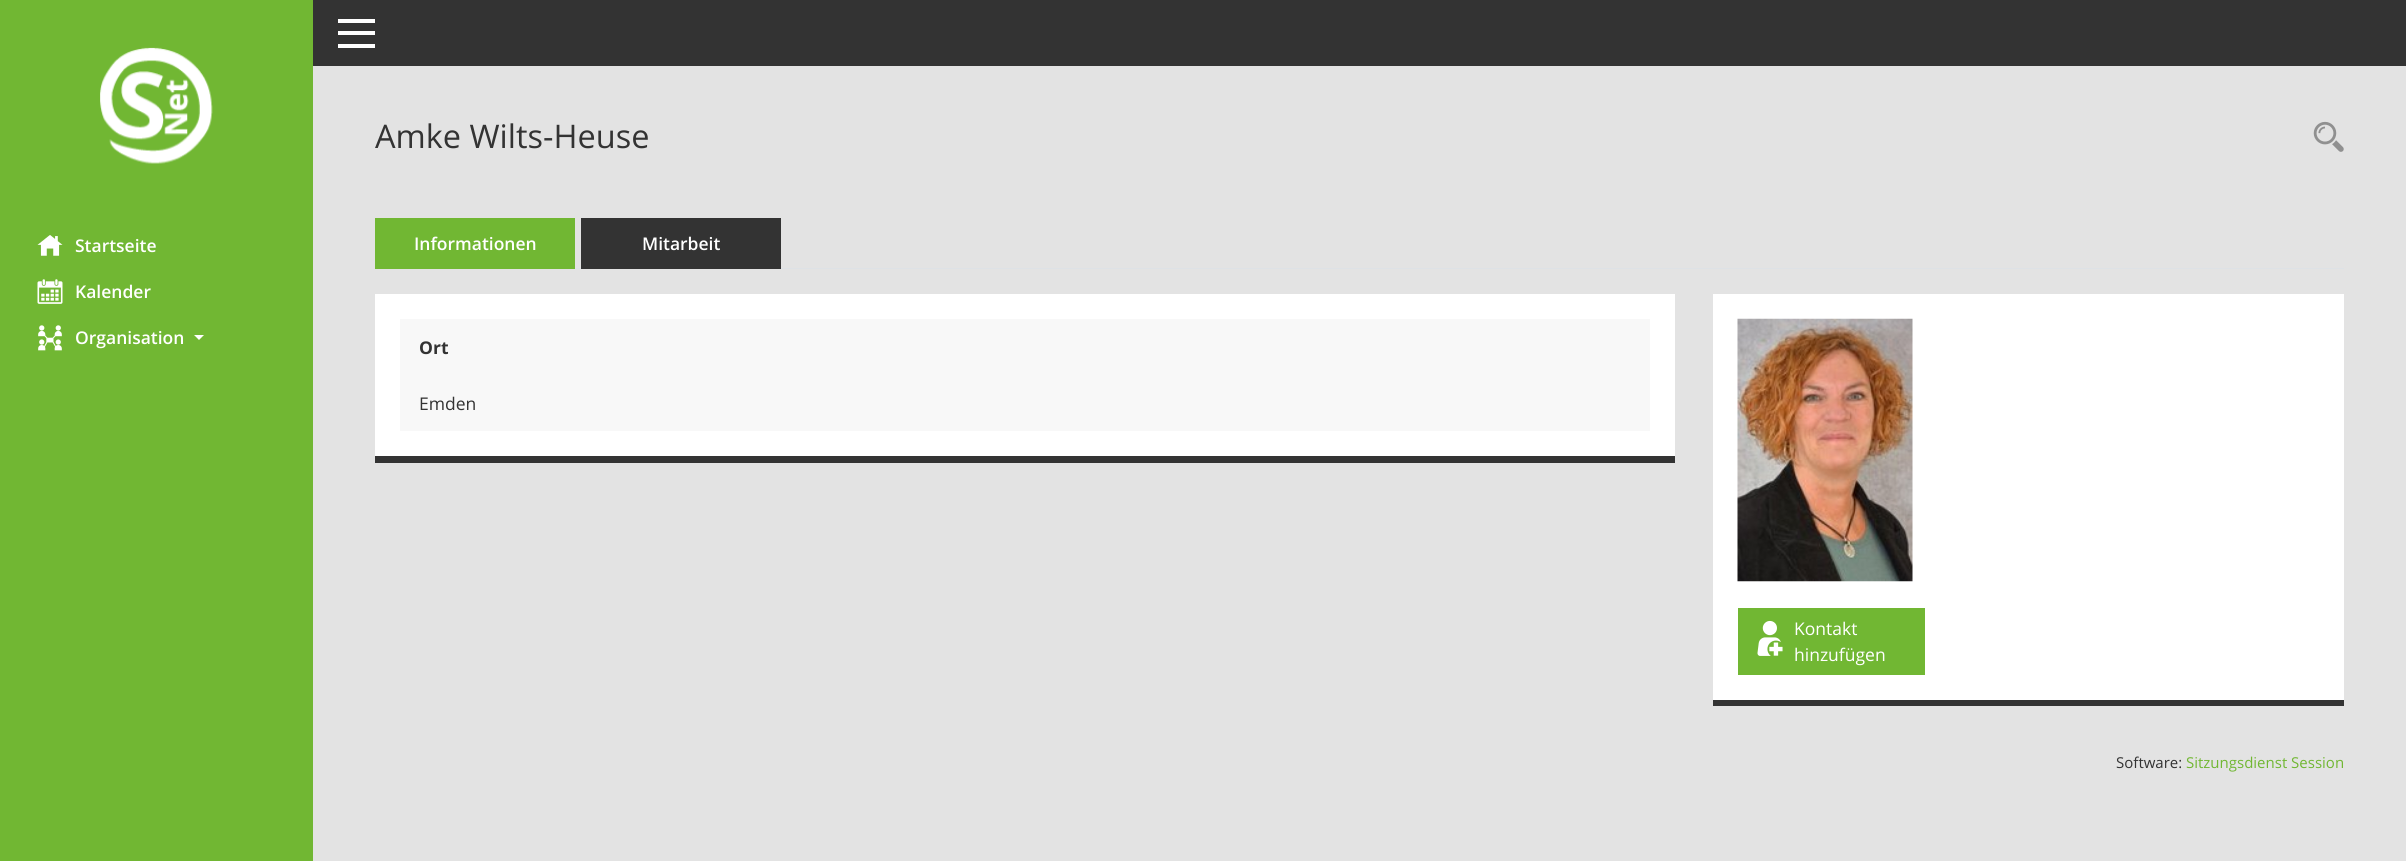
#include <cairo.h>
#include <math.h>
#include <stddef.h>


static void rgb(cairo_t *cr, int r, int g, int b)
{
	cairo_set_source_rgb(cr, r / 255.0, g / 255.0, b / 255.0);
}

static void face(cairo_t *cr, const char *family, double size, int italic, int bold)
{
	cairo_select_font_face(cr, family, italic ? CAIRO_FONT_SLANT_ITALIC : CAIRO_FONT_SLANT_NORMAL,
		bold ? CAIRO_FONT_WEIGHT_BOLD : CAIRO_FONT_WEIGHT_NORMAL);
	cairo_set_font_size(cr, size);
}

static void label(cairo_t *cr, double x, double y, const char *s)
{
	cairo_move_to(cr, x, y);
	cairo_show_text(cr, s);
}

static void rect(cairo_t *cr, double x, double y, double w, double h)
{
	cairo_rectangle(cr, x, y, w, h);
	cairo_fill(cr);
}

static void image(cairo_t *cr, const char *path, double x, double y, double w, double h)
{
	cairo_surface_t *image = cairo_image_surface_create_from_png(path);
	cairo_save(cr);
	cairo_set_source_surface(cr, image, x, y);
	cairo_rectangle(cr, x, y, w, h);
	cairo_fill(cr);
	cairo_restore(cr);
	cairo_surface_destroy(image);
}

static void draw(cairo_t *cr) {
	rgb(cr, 227, 227, 227);
	cairo_paint(cr);
	rgb(cr, 113, 183, 51);
	rect(cr, 0, 0, 313, 861);
	image(cr, "image0.png", 100, 47, 113, 117);
	image(cr, "image1.png", 37, 235, 26, 21);
	face(cr, "Open Sans SemiBold", 17.5, 0, 0);
	rgb(cr, 255, 255, 255);
	label(cr, 75, 252, "Startseite");
	image(cr, "image2.png", 37, 279, 26, 25);
	label(cr, 75, 298, "Kalender");
	image(cr, "image3.png", 38, 325, 24, 26);
	label(cr, 75, 344, "Organisation");
	cairo_new_path(cr);
	cairo_move_to(cr, 194, 335);
	cairo_line_to(cr, 204, 335);
	cairo_line_to(cr, 199, 340);
	cairo_close_path(cr);
	cairo_fill(cr);
	rgb(cr, 51, 51, 51);
	rect(cr, 313, 0, 2093, 66);
	rgb(cr, 255, 255, 255);
	rect(cr, 338, 19, 37, 4);
	rect(cr, 338, 31, 37, 4);
	rect(cr, 338, 44, 37, 4);
	face(cr, "Open Sans", 32.5, 0, 0);
	rgb(cr, 51, 51, 51);
	label(cr, 375, 148, "Amke Wilts-Heuse");
	image(cr, "image4.png", 2313, 121, 31, 31);
	rgb(cr, 222, 226, 230);
	rect(cr, 575, 268, 1769, 1);
	rgb(cr, 113, 183, 51);
	rect(cr, 375, 218, 200, 51);
	face(cr, "Open Sans SemiBold", 17.5, 0, 0);
	rgb(cr, 255, 255, 255);
	label(cr, 414, 250, "Informationen");
	rgb(cr, 51, 51, 51);
	rect(cr, 581, 218, 200, 51);
	rgb(cr, 255, 255, 255);
	label(cr, 642, 250, "Mitarbeit");
	rect(cr, 375, 294, 1300, 162);
	rgb(cr, 51, 51, 51);
	rect(cr, 375, 456, 1300, 7);
	rgb(cr, 248, 248, 248);
	rect(cr, 400, 319, 1250, 112);
	face(cr, "Open Sans", 17.5, 0, 1);
	rgb(cr, 51, 51, 51);
	label(cr, 419, 354, "Ort");
	face(cr, "Open Sans", 17.5, 0, 0);
	label(cr, 419, 410, "Emden");
	rgb(cr, 255, 255, 255);
	rect(cr, 1713, 294, 631, 406);
	rgb(cr, 51, 51, 51);
	rect(cr, 1713, 700, 631, 6);
	image(cr, "image5.png", 1737, 318, 176, 264);
	rgb(cr, 113, 183, 51);
	rect(cr, 1738, 608, 187, 67);
	image(cr, "image6.png", 1757, 620, 26, 36);
	rgb(cr, 255, 255, 255);
	label(cr, 1794, 635, "Kontakt");
	label(cr, 1794, 661, "hinzufügen");
	face(cr, "Open Sans", 15, 0, 0);
	rgb(cr, 51, 51, 51);
	label(cr, 2116, 768, "Software:");
	rgb(cr, 113, 183, 51);
	label(cr, 2186, 768, "Sitzungsdienst Session");
}

int main(void) {
	cairo_surface_t *surface = cairo_image_surface_create(CAIRO_FORMAT_RGB24, 2406, 861);
	cairo_t *cr = cairo_create(surface);
	cairo_font_options_t *options = cairo_font_options_create();
	cairo_font_options_set_hint_metrics(options, CAIRO_HINT_METRICS_OFF);
	cairo_font_options_set_hint_style(options, CAIRO_HINT_STYLE_NONE);
	cairo_set_font_options(cr, options);
	cairo_set_miter_limit(cr, 4);
	draw(cr);
	cairo_surface_write_to_png(surface, "render.png");
	cairo_font_options_destroy(options);
	cairo_destroy(cr);
	cairo_surface_destroy(surface);
	return 0;
}
